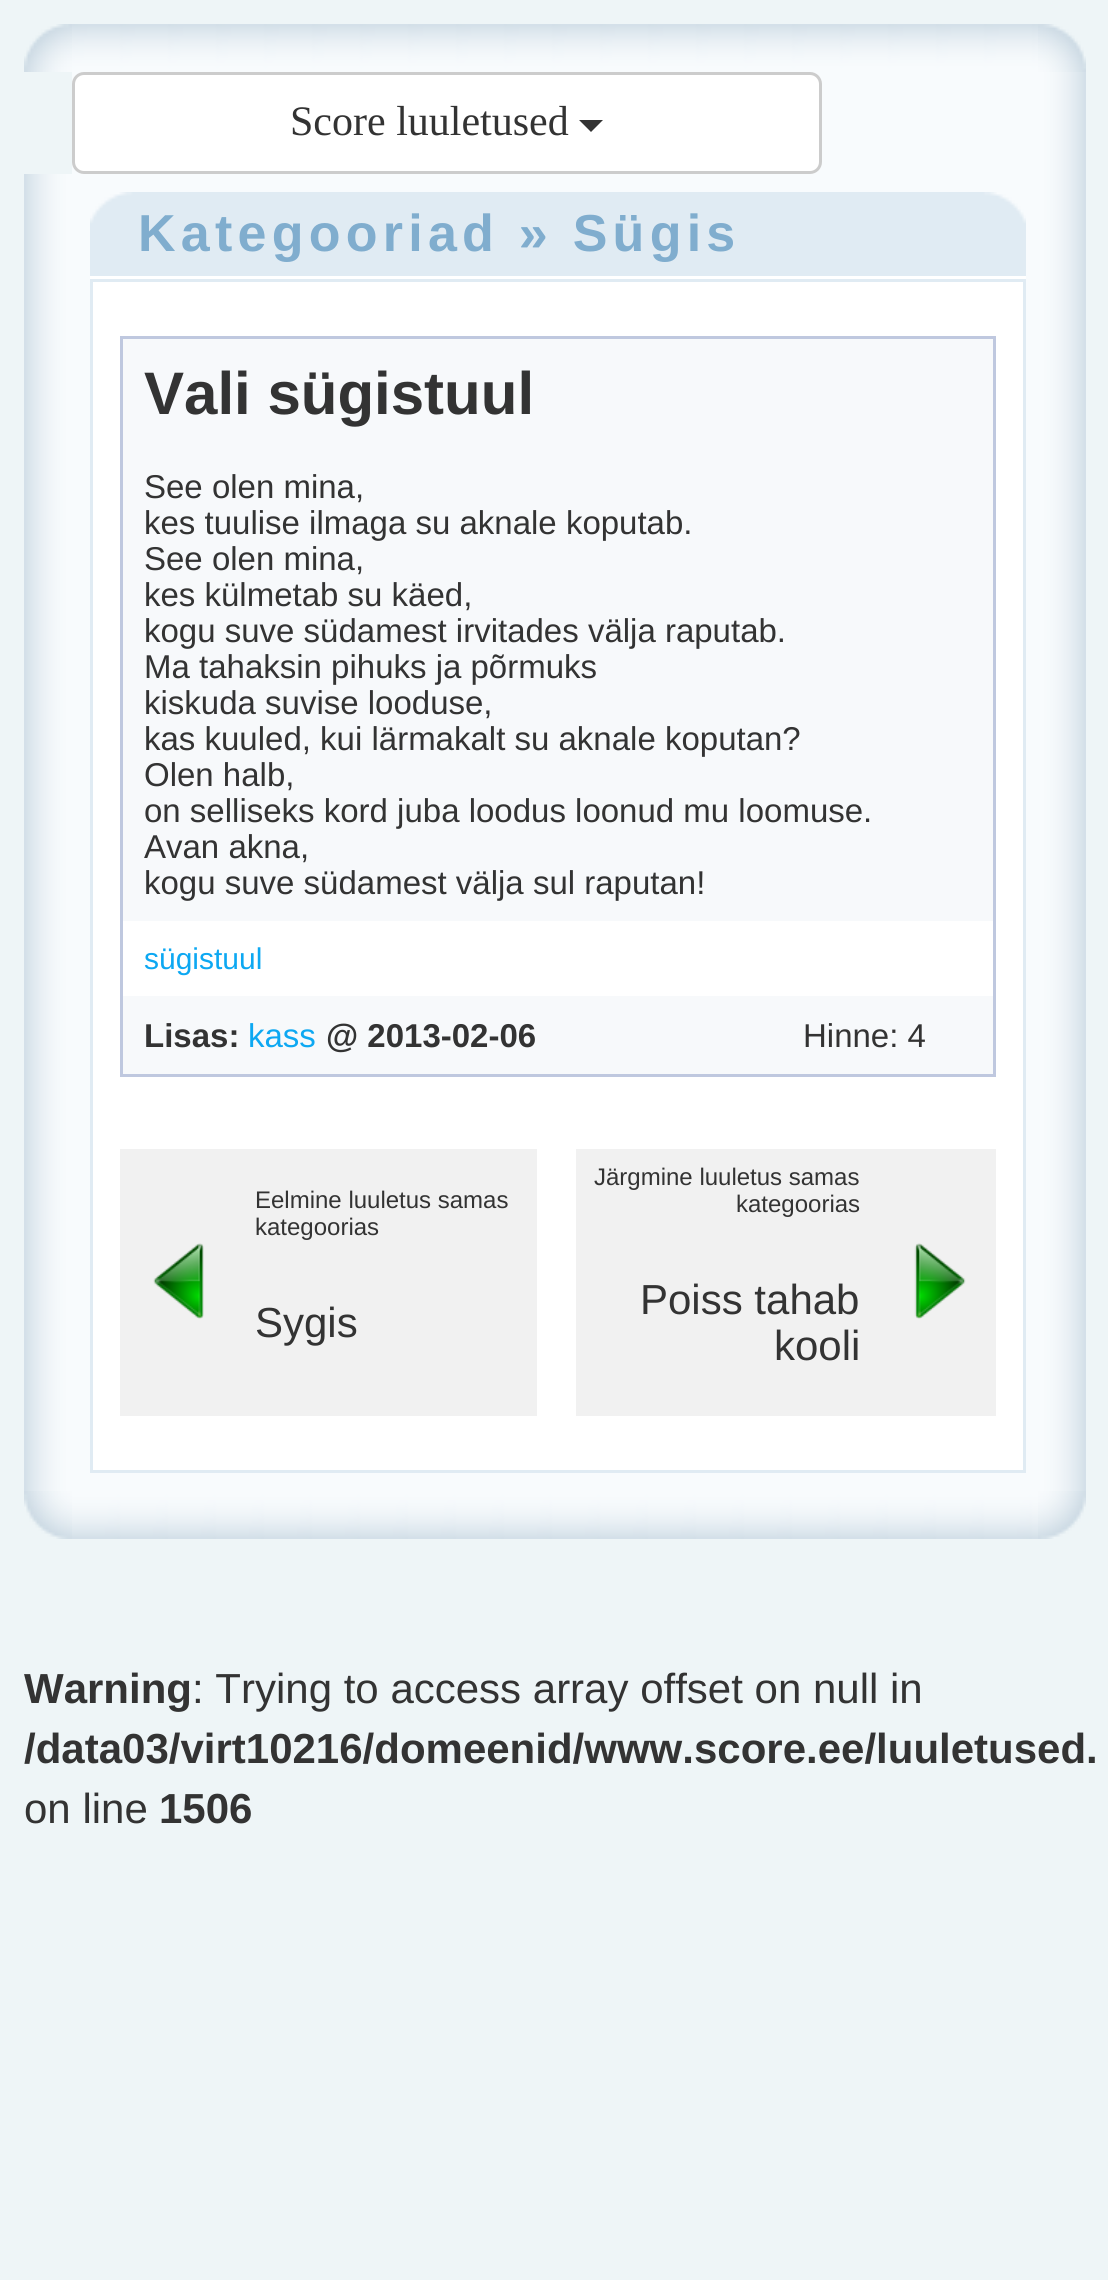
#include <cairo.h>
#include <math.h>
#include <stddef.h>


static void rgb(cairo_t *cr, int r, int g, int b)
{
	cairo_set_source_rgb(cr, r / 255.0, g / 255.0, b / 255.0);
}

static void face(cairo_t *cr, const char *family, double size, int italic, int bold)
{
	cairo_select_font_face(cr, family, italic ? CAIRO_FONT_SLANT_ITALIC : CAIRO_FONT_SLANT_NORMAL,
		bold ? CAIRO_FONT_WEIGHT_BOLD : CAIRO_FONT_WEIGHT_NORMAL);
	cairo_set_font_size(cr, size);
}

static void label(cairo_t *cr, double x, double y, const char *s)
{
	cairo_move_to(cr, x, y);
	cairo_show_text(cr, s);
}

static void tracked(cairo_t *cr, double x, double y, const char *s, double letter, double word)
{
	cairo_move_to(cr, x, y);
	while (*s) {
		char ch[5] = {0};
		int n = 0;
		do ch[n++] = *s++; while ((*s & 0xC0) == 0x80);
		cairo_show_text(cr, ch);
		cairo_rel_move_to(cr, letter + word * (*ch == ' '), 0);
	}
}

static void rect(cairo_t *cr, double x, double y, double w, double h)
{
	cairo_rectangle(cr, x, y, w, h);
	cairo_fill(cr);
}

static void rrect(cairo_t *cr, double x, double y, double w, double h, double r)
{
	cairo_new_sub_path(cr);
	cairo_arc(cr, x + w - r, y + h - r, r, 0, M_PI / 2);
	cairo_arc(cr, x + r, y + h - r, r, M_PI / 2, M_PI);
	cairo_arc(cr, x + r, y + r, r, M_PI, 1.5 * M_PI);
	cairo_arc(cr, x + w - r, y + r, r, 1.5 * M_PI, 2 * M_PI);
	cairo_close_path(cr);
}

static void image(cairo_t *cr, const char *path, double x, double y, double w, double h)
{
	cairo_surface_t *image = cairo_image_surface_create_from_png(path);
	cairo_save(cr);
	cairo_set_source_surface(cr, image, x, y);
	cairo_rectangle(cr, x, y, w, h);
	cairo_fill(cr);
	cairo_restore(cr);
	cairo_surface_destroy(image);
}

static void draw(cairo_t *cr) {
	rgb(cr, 238, 245, 247);
	cairo_paint(cr);
	image(cr, "image0.png", 24, 24, 48, 48);
	image(cr, "image1.png", 72, 24, 966, 48);
	image(cr, "image2.png", 1038, 24, 48, 48);
	rgb(cr, 248, 251, 253);
	rect(cr, 72, 72, 966, 1419);
	rgb(cr, 255, 255, 255);
	rrect(cr, 73.5, 73.5, 747, 99, 10.5);
	cairo_fill_preserve(cr);
	rgb(cr, 204, 204, 204);
	cairo_set_line_width(cr, 3);
	cairo_stroke(cr);
	face(cr, "Liberation Serif", 42, 0, 0);
	rgb(cr, 51, 51, 51);
	label(cr, 290, 135, "Score luuletused");
	cairo_new_path(cr);
	cairo_move_to(cr, 579, 120);
	cairo_line_to(cr, 603, 120);
	cairo_line_to(cr, 591, 132);
	cairo_close_path(cr);
	cairo_fill(cr);
	image(cr, "image3.png", 1038, 72, 48, 102);
	image(cr, "image4.png", 24, 174, 48, 1317);
	image(cr, "image5.png", 90, 192, 48, 48);
	rgb(cr, 224, 235, 243);
	rect(cr, 138, 192, 840, 84);
	face(cr, "Liberation Sans", 52, 0, 1);
	rgb(cr, 128, 173, 206);
	tracked(cr, 138, 251, "Kategooriad » Sügis", 5.25, 0);
	image(cr, "image6.png", 978, 192, 48, 48);
	rgb(cr, 224, 235, 243);
	rect(cr, 90, 240, 48, 36);
	rect(cr, 978, 240, 48, 36);
	rgb(cr, 255, 255, 255);
	rect(cr, 90, 276, 936, 3);
	rect(cr, 93, 282, 930, 1188);
	rgb(cr, 224, 235, 243);
	rect(cr, 90, 279, 936, 3);
	rect(cr, 1023, 279, 3, 1194);
	rect(cr, 90, 1470, 936, 3);
	rect(cr, 90, 279, 3, 1194);
	cairo_rectangle(cr, 121.5, 337.5, 873, 738);
	rgb(cr, 191, 200, 223);
	cairo_stroke(cr);
	rgb(cr, 247, 249, 251);
	rect(cr, 123, 339, 870, 582);
	face(cr, "Liberation Sans", 60, 0, 1);
	rgb(cr, 51, 51, 51);
	label(cr, 144, 414, "Vali sügistuul");
	face(cr, "Liberation Sans", 33, 0, 0);
	label(cr, 144, 498, "See olen mina,");
	label(cr, 144, 534, "kes tuulise ilmaga su aknale koputab.");
	label(cr, 144, 570, "See olen mina,");
	label(cr, 144, 606, "kes külmetab su käed,");
	label(cr, 144, 642, "kogu suve südamest irvitades välja raputab.");
	label(cr, 144, 678, "Ma tahaksin pihuks ja põrmuks");
	label(cr, 144, 714, "kiskuda suvise looduse,");
	label(cr, 144, 750, "kas kuuled, kui lärmakalt su aknale koputan?");
	label(cr, 144, 786, "Olen halb,");
	label(cr, 144, 822, "on selliseks kord juba loodus loonud mu loomuse.");
	label(cr, 144, 858, "Avan akna,");
	label(cr, 144, 894, "kogu suve südamest välja sul raputan!");
	face(cr, "Liberation Sans", 30, 0, 0);
	rgb(cr, 13, 168, 242);
	label(cr, 144, 969, "sügistuul");
	rgb(cr, 247, 249, 251);
	rect(cr, 123, 996, 870, 78);
	face(cr, "Liberation Sans", 33, 0, 1);
	rgb(cr, 51, 51, 51);
	label(cr, 144, 1047, "Lisas:");
	face(cr, "Liberation Sans", 33, 0, 0);
	rgb(cr, 13, 168, 242);
	label(cr, 248, 1047, "kass");
	face(cr, "Liberation Sans", 33, 0, 1);
	rgb(cr, 51, 51, 51);
	label(cr, 326, 1047, "@ 2013-02-06");
	face(cr, "Liberation Sans", 33, 0, 0);
	label(cr, 803, 1047, "Hinne: 4");
	rgb(cr, 241, 241, 241);
	rect(cr, 120, 1149, 876, 267);
	image(cr, "image7.png", 153, 1243, 51, 76);
	face(cr, "Liberation Sans", 24, 0, 0);
	rgb(cr, 51, 51, 51);
	label(cr, 255, 1208, "Eelmine luuletus samas");
	label(cr, 255, 1235, "kategoorias");
	face(cr, "Liberation Sans", 42, 0, 0);
	label(cr, 255, 1337, "Sygis");
	rgb(cr, 255, 255, 255);
	rect(cr, 537, 1149, 39, 267);
	face(cr, "Liberation Sans", 24, 0, 0);
	rgb(cr, 51, 51, 51);
	label(cr, 594, 1185, "Järgmine luuletus samas");
	label(cr, 736, 1212, "kategoorias");
	face(cr, "Liberation Sans", 42, 0, 0);
	label(cr, 640, 1314, "Poiss tahab");
	label(cr, 774, 1360, "kooli");
	image(cr, "image8.png", 914, 1243, 52, 76);
	image(cr, "image9.png", 1038, 174, 48, 1317);
	image(cr, "image10.png", 24, 1491, 48, 48);
	image(cr, "image11.png", 72, 1491, 966, 48);
	image(cr, "image12.png", 1038, 1491, 48, 48);
	face(cr, "Liberation Sans", 42, 0, 1);
	label(cr, 24, 1703, "Warning");
	face(cr, "Liberation Sans", 42, 0, 0);
	label(cr, 192, 1703, ": Trying to access array offset on null in");
	face(cr, "Liberation Sans", 42, 0, 1);
	label(cr, 24, 1763, "/data03/virt10216/domeenid/www.score.ee/luuletused.");
	face(cr, "Liberation Sans", 42, 0, 0);
	label(cr, 24, 1823, "on line");
	face(cr, "Liberation Sans", 42, 0, 1);
	label(cr, 159, 1823, "1506");
}

int main(void) {
	cairo_surface_t *surface = cairo_image_surface_create(CAIRO_FORMAT_RGB24, 1108, 2280);
	cairo_t *cr = cairo_create(surface);
	cairo_font_options_t *options = cairo_font_options_create();
	cairo_font_options_set_hint_metrics(options, CAIRO_HINT_METRICS_OFF);
	cairo_font_options_set_hint_style(options, CAIRO_HINT_STYLE_NONE);
	cairo_set_font_options(cr, options);
	cairo_set_miter_limit(cr, 4);
	draw(cr);
	cairo_surface_write_to_png(surface, "render.png");
	cairo_font_options_destroy(options);
	cairo_destroy(cr);
	cairo_surface_destroy(surface);
	return 0;
}
